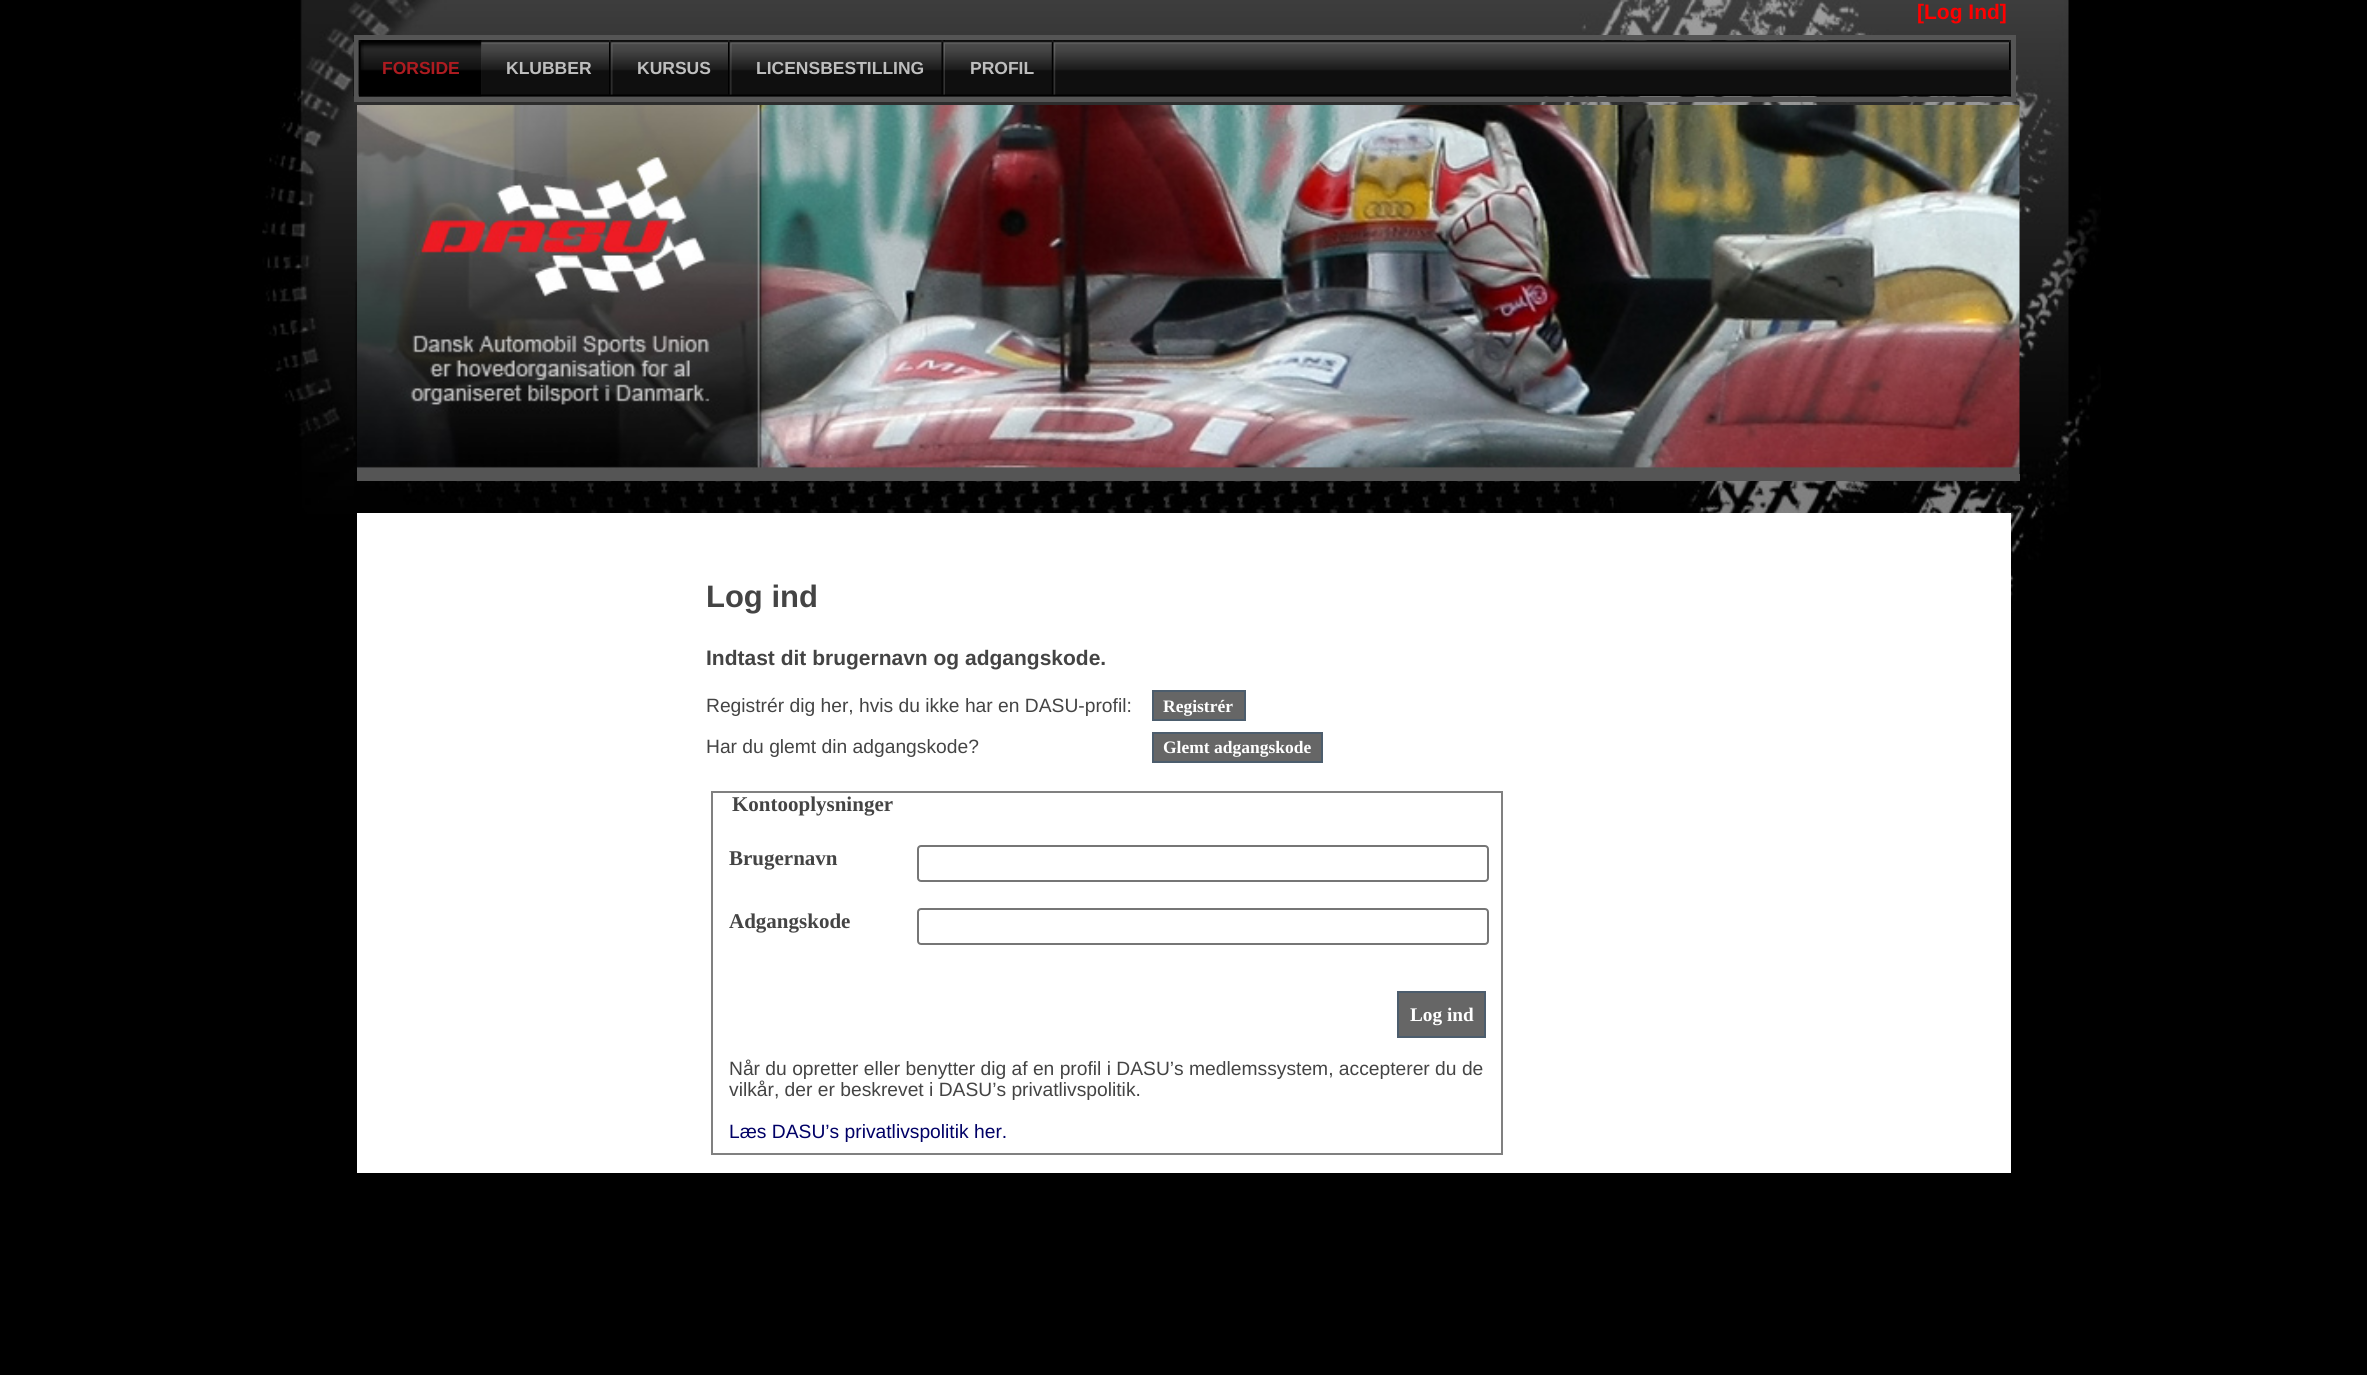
#include <cairo.h>
#include <math.h>
#include <stddef.h>


static void rgb(cairo_t *cr, int r, int g, int b)
{
	cairo_set_source_rgb(cr, r / 255.0, g / 255.0, b / 255.0);
}

static void face(cairo_t *cr, const char *family, double size, int italic, int bold)
{
	cairo_select_font_face(cr, family, italic ? CAIRO_FONT_SLANT_ITALIC : CAIRO_FONT_SLANT_NORMAL,
		bold ? CAIRO_FONT_WEIGHT_BOLD : CAIRO_FONT_WEIGHT_NORMAL);
	cairo_set_font_size(cr, size);
}

static void label(cairo_t *cr, double x, double y, const char *s)
{
	cairo_move_to(cr, x, y);
	cairo_show_text(cr, s);
}

static void rect(cairo_t *cr, double x, double y, double w, double h)
{
	cairo_rectangle(cr, x, y, w, h);
	cairo_fill(cr);
}

static void rrect(cairo_t *cr, double x, double y, double w, double h, double r)
{
	cairo_new_sub_path(cr);
	cairo_arc(cr, x + w - r, y + h - r, r, 0, M_PI / 2);
	cairo_arc(cr, x + r, y + h - r, r, M_PI / 2, M_PI);
	cairo_arc(cr, x + r, y + r, r, M_PI, 1.5 * M_PI);
	cairo_arc(cr, x + w - r, y + r, r, 1.5 * M_PI, 2 * M_PI);
	cairo_close_path(cr);
}

static void image(cairo_t *cr, const char *path, double x, double y, double w, double h)
{
	cairo_surface_t *image = cairo_image_surface_create_from_png(path);
	cairo_save(cr);
	cairo_set_source_surface(cr, image, x, y);
	cairo_rectangle(cr, x, y, w, h);
	cairo_fill(cr);
	cairo_restore(cr);
	cairo_surface_destroy(image);
}

static void draw(cairo_t *cr) {
	rgb(cr, 0, 0, 0);
	cairo_paint(cr);
	image(cr, "image0.png", 262, 0, 1839, 630);
	face(cr, "Liberation Sans", 21, 0, 1);
	rgb(cr, 255, 0, 0);
	label(cr, 1917, 19, "[Log Ind]");
	image(cr, "image1.png", 353, 40, 1658, 57);
	cairo_rectangle(cr, 356.5, 37.5, 1657, 62);
	rgb(cr, 85, 85, 85);
	cairo_set_line_width(cr, 5);
	cairo_stroke(cr);
	image(cr, "image2.png", 477, 40, 5, 55);
	image(cr, "image3.png", 358, 40, 124, 57);
	image(cr, "image4.png", 358, 40, 6, 55);
	face(cr, "Liberation Sans", 17.5, 0, 1);
	rgb(cr, 173, 27, 32);
	label(cr, 382, 74, "FORSIDE");
	image(cr, "image5.png", 609, 40, 4, 55);
	rgb(cr, 190, 190, 190);
	label(cr, 506, 74, "KLUBBER");
	image(cr, "image5.png", 728, 40, 4, 55);
	label(cr, 637, 74, "KURSUS");
	image(cr, "image6.png", 941, 40, 4, 55);
	label(cr, 756, 74, "LICENSBESTILLING");
	image(cr, "image2.png", 1051, 40, 5, 55);
	label(cr, 970, 74, "PROFIL");
	image(cr, "image7.png", 2009, 40, 2, 30);
	image(cr, "image8.png", 357, 105, 1663, 369);
	rgb(cr, 85, 85, 85);
	rect(cr, 357, 474, 1663, 7);
	rgb(cr, 255, 255, 255);
	rect(cr, 357, 513, 1654, 660);
	face(cr, "Liberation Sans", 31, 0, 1);
	rgb(cr, 68, 68, 68);
	label(cr, 706, 607, "Log ind");
	face(cr, "Liberation Sans", 21, 0, 1);
	label(cr, 706, 665, "Indtast dit brugernavn og adgangskode.");
	face(cr, "Liberation Sans", 19.25, 0, 0);
	label(cr, 706, 712, "Registrér dig her, hvis du ikke har en DASU-profil:");
	rgb(cr, 102, 102, 102);
	cairo_rectangle(cr, 1153, 691, 92, 29);
	cairo_fill_preserve(cr);
	rgb(cr, 76, 93, 109);
	cairo_set_line_width(cr, 2);
	cairo_stroke(cr);
	face(cr, "Liberation Serif", 17.5, 0, 1);
	rgb(cr, 255, 255, 255);
	label(cr, 1163, 712, "Registrér");
	face(cr, "Liberation Sans", 19.25, 0, 0);
	rgb(cr, 68, 68, 68);
	label(cr, 706, 753, "Har du glemt din adgangskode?");
	rgb(cr, 102, 102, 102);
	cairo_rectangle(cr, 1153, 733, 169, 29);
	cairo_fill_preserve(cr);
	rgb(cr, 76, 93, 109);
	cairo_stroke(cr);
	face(cr, "Liberation Serif", 17.5, 0, 1);
	rgb(cr, 255, 255, 255);
	label(cr, 1163, 753, "Glemt adgangskode");
	cairo_rectangle(cr, 712, 792, 790, 362);
	rgb(cr, 128, 128, 128);
	cairo_stroke(cr);
	face(cr, "Liberation Serif", 21, 0, 1);
	rgb(cr, 68, 68, 68);
	label(cr, 732, 811, "Kontooplysninger");
	label(cr, 729, 865, "Brugernavn");
	rrect(cr, 918, 846, 570, 35, 3);
	rgb(cr, 118, 118, 118);
	cairo_stroke(cr);
	rgb(cr, 68, 68, 68);
	label(cr, 729, 928, "Adgangskode");
	rrect(cr, 918, 909, 570, 35, 3);
	rgb(cr, 118, 118, 118);
	cairo_stroke(cr);
	rgb(cr, 102, 102, 102);
	cairo_rectangle(cr, 1398, 992, 87, 45);
	cairo_fill_preserve(cr);
	rgb(cr, 76, 93, 109);
	cairo_stroke(cr);
	face(cr, "Liberation Serif", 19.25, 0, 1);
	rgb(cr, 255, 255, 255);
	label(cr, 1410, 1021, "Log ind");
	face(cr, "Liberation Sans", 19.25, 0, 0);
	rgb(cr, 68, 68, 68);
	label(cr, 729, 1075, "Når du opretter eller benytter dig af en profil i DASU’s medlemssystem, accepterer du de");
	label(cr, 729, 1096, "vilkår, der er beskrevet i DASU’s privatlivspolitik.");
	rgb(cr, 0, 0, 102);
	label(cr, 729, 1138, "Læs DASU’s privatlivspolitik her.");
}

int main(void) {
	cairo_surface_t *surface = cairo_image_surface_create(CAIRO_FORMAT_RGB24, 2367, 1375);
	cairo_t *cr = cairo_create(surface);
	cairo_font_options_t *options = cairo_font_options_create();
	cairo_font_options_set_hint_metrics(options, CAIRO_HINT_METRICS_OFF);
	cairo_font_options_set_hint_style(options, CAIRO_HINT_STYLE_NONE);
	cairo_set_font_options(cr, options);
	cairo_set_miter_limit(cr, 4);
	draw(cr);
	cairo_surface_write_to_png(surface, "render.png");
	cairo_font_options_destroy(options);
	cairo_destroy(cr);
	cairo_surface_destroy(surface);
	return 0;
}
